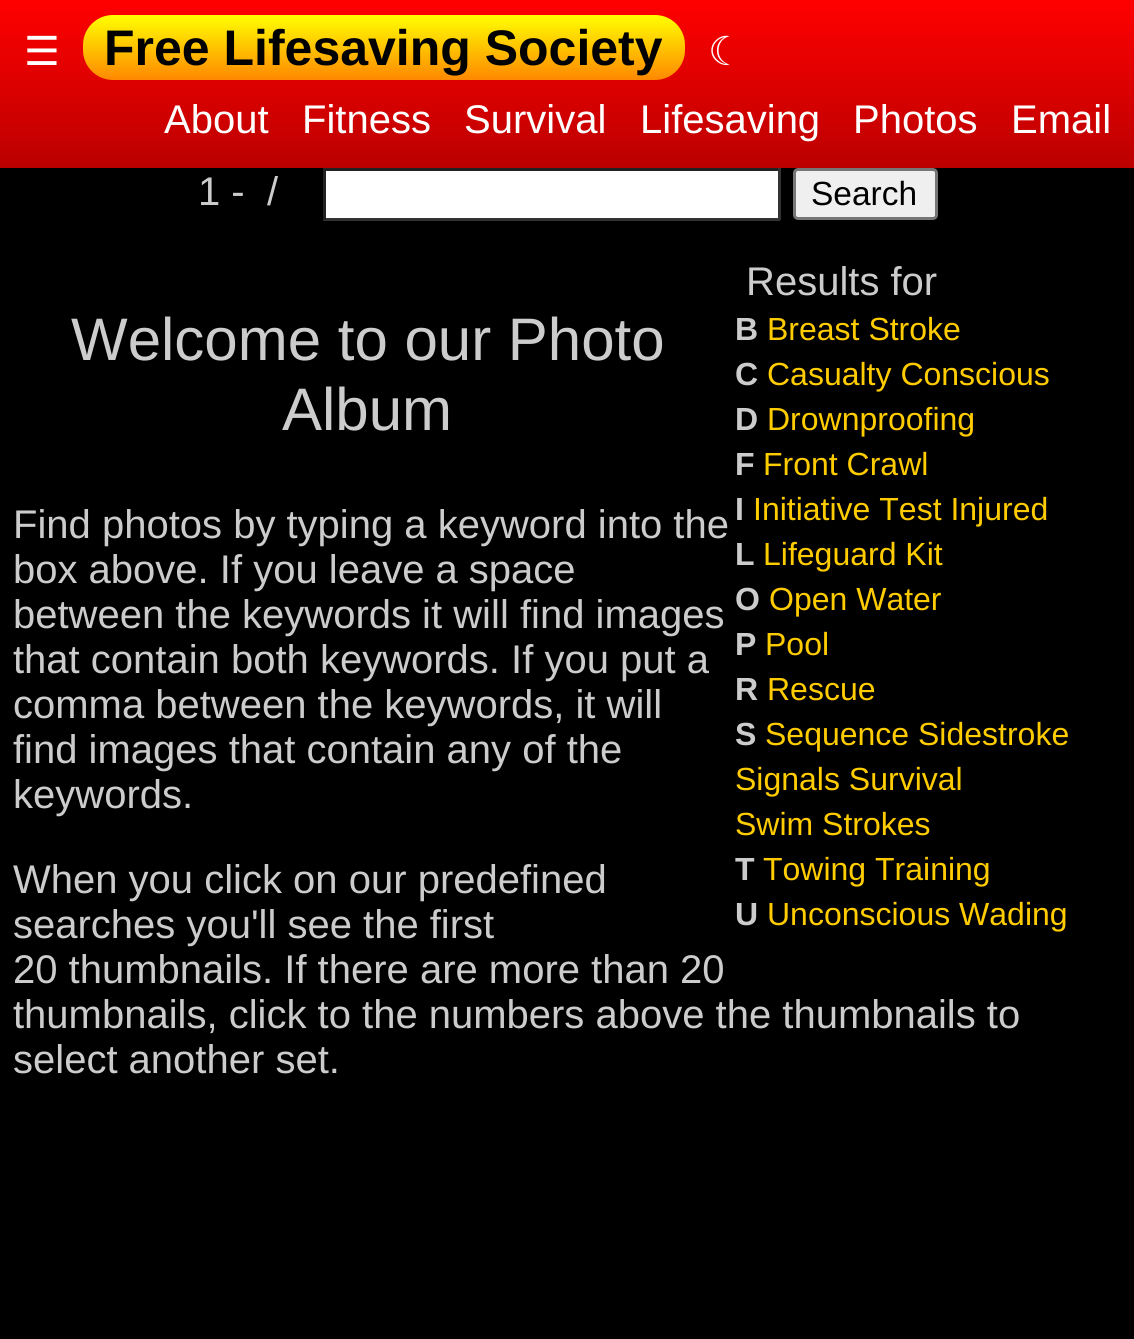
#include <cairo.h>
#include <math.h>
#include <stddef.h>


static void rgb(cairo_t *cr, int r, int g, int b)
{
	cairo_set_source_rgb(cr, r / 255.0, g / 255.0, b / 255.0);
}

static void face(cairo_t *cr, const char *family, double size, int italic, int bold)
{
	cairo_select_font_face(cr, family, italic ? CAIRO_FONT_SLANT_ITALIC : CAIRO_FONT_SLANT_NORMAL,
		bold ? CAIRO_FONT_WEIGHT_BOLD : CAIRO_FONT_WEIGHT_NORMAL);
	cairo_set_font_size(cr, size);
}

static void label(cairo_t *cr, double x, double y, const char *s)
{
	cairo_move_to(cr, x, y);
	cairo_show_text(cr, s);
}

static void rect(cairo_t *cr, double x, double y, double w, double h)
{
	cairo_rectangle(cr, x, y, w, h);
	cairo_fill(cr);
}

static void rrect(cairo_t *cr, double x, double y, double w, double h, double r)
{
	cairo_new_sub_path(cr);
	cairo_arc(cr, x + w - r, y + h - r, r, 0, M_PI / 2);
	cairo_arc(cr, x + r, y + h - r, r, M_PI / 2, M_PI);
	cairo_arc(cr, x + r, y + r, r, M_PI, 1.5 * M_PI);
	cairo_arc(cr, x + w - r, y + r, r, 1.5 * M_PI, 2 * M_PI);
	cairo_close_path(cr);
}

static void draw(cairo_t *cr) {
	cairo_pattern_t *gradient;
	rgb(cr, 0, 0, 0);
	cairo_paint(cr);
	gradient = cairo_pattern_create_linear(568, 0, 568, 168);
	cairo_pattern_add_color_stop_rgba(gradient, 0, 1, 0, 0, 1);
	cairo_pattern_add_color_stop_rgba(gradient, 1, 0.733, 0, 0, 1);
	cairo_set_source(cr, gradient);
	cairo_pattern_destroy(gradient);
	rect(cr, 0, 0, 1134, 168);
	face(cr, "DejaVu Sans", 40, 0, 0);
	rgb(cr, 255, 255, 255);
	label(cr, 24, 65, "☰");
	gradient = cairo_pattern_create_linear(384, 15, 384, 80);
	cairo_pattern_add_color_stop_rgba(gradient, 0, 1, 1, 0, 1);
	cairo_pattern_add_color_stop_rgba(gradient, 1, 1, 0.533, 0, 1);
	cairo_set_source(cr, gradient);
	cairo_pattern_destroy(gradient);
	rrect(cr, 83, 15, 602, 65, 30);
	cairo_fill(cr);
	face(cr, "Liberation Sans", 50, 0, 1);
	rgb(cr, 0, 0, 0);
	label(cr, 104, 65, "Free Lifesaving Society");
	face(cr, "DejaVu Sans", 40, 0, 0);
	rgb(cr, 255, 255, 255);
	label(cr, 708, 65, "☾");
	face(cr, "Liberation Sans", 40, 0, 0);
	label(cr, 164, 133, "About");
	label(cr, 302, 133, "Fitness");
	label(cr, 464, 133, "Survival");
	label(cr, 640, 133, "Lifesaving");
	label(cr, 853, 133, "Photos");
	label(cr, 1011, 133, "Email");
	rgb(cr, 204, 204, 204);
	label(cr, 198, 205, "1 -  /");
	rgb(cr, 255, 255, 255);
	rect(cr, 326, 171, 452, 47);
	rgb(cr, 34, 34, 34);
	rect(cr, 323, 168, 457, 3);
	rgb(cr, 51, 51, 51);
	rect(cr, 778, 168, 3, 52);
	rect(cr, 323, 218, 457, 3);
	rgb(cr, 34, 34, 34);
	rect(cr, 323, 168, 3, 52);
	rgb(cr, 239, 239, 239);
	rrect(cr, 794.5, 169.5, 142, 49, 3.5);
	cairo_fill_preserve(cr);
	rgb(cr, 118, 118, 118);
	cairo_set_line_width(cr, 3);
	cairo_stroke(cr);
	face(cr, "Liberation Sans", 33.5, 0, 0);
	rgb(cr, 0, 0, 0);
	label(cr, 811, 205, "Search");
	face(cr, "Liberation Sans", 40, 0, 0);
	rgb(cr, 204, 204, 204);
	label(cr, 746, 295, "Results for");
	face(cr, "Liberation Sans", 32, 0, 1);
	label(cr, 735, 340, "B");
	face(cr, "Liberation Sans", 32, 0, 0);
	rgb(cr, 255, 204, 0);
	label(cr, 767, 340, "Breast Stroke");
	face(cr, "Liberation Sans", 32, 0, 1);
	rgb(cr, 204, 204, 204);
	label(cr, 735, 385, "C");
	face(cr, "Liberation Sans", 32, 0, 0);
	rgb(cr, 255, 204, 0);
	label(cr, 767, 385, "Casualty Conscious");
	face(cr, "Liberation Sans", 32, 0, 1);
	rgb(cr, 204, 204, 204);
	label(cr, 735, 430, "D");
	face(cr, "Liberation Sans", 32, 0, 0);
	rgb(cr, 255, 204, 0);
	label(cr, 767, 430, "Drownproofing");
	face(cr, "Liberation Sans", 32, 0, 1);
	rgb(cr, 204, 204, 204);
	label(cr, 735, 475, "F");
	face(cr, "Liberation Sans", 32, 0, 0);
	rgb(cr, 255, 204, 0);
	label(cr, 763, 475, "Front Crawl");
	face(cr, "Liberation Sans", 32, 0, 1);
	rgb(cr, 204, 204, 204);
	label(cr, 735, 520, "I");
	face(cr, "Liberation Sans", 32, 0, 0);
	rgb(cr, 255, 204, 0);
	label(cr, 753, 520, "Initiative Test Injured");
	face(cr, "Liberation Sans", 32, 0, 1);
	rgb(cr, 204, 204, 204);
	label(cr, 735, 565, "L");
	face(cr, "Liberation Sans", 32, 0, 0);
	rgb(cr, 255, 204, 0);
	label(cr, 763, 565, "Lifeguard Kit");
	face(cr, "Liberation Sans", 32, 0, 1);
	rgb(cr, 204, 204, 204);
	label(cr, 735, 610, "O");
	face(cr, "Liberation Sans", 32, 0, 0);
	rgb(cr, 255, 204, 0);
	label(cr, 769, 610, "Open Water");
	face(cr, "Liberation Sans", 32, 0, 1);
	rgb(cr, 204, 204, 204);
	label(cr, 735, 655, "P");
	face(cr, "Liberation Sans", 32, 0, 0);
	rgb(cr, 255, 204, 0);
	label(cr, 765, 655, "Pool");
	face(cr, "Liberation Sans", 32, 0, 1);
	rgb(cr, 204, 204, 204);
	label(cr, 735, 700, "R");
	face(cr, "Liberation Sans", 32, 0, 0);
	rgb(cr, 255, 204, 0);
	label(cr, 767, 700, "Rescue");
	face(cr, "Liberation Sans", 32, 0, 1);
	rgb(cr, 204, 204, 204);
	label(cr, 735, 745, "S");
	face(cr, "Liberation Sans", 32, 0, 0);
	rgb(cr, 255, 204, 0);
	label(cr, 765, 745, "Sequence Sidestroke");
	label(cr, 735, 790, "Signals Survival");
	label(cr, 735, 835, "Swim Strokes");
	face(cr, "Liberation Sans", 32, 0, 1);
	rgb(cr, 204, 204, 204);
	label(cr, 735, 880, "T");
	face(cr, "Liberation Sans", 32, 0, 0);
	rgb(cr, 255, 204, 0);
	label(cr, 763, 880, "Towing Training");
	face(cr, "Liberation Sans", 32, 0, 1);
	rgb(cr, 204, 204, 204);
	label(cr, 735, 925, "U");
	face(cr, "Liberation Sans", 32, 0, 0);
	rgb(cr, 255, 204, 0);
	label(cr, 767, 925, "Unconscious Wading");
	face(cr, "Liberation Sans", 60, 0, 0);
	rgb(cr, 204, 204, 204);
	label(cr, 71, 360, "Welcome to our Photo");
	label(cr, 282, 430, "Album");
	face(cr, "Liberation Sans", 40, 0, 0);
	label(cr, 13, 538, "Find photos by typing a keyword into the");
	label(cr, 13, 583, "box above. If you leave a space");
	label(cr, 13, 628, "between the keywords it will find images");
	label(cr, 13, 673, "that contain both keywords. If you put a");
	label(cr, 13, 718, "comma between the keywords, it will");
	label(cr, 13, 763, "find images that contain any of the");
	label(cr, 13, 808, "keywords.");
	label(cr, 13, 893, "When you click on our predefined");
	label(cr, 13, 938, "searches you'll see the first");
	label(cr, 13, 983, "20 thumbnails. If there are more than 20");
	label(cr, 13, 1028, "thumbnails, click to the numbers above the thumbnails to");
	label(cr, 13, 1073, "select another set.");
}

int main(void) {
	cairo_surface_t *surface = cairo_image_surface_create(CAIRO_FORMAT_RGB24, 1134, 1339);
	cairo_t *cr = cairo_create(surface);
	cairo_font_options_t *options = cairo_font_options_create();
	cairo_font_options_set_hint_metrics(options, CAIRO_HINT_METRICS_OFF);
	cairo_font_options_set_hint_style(options, CAIRO_HINT_STYLE_NONE);
	cairo_set_font_options(cr, options);
	cairo_set_miter_limit(cr, 4);
	draw(cr);
	cairo_surface_write_to_png(surface, "render.png");
	cairo_font_options_destroy(options);
	cairo_destroy(cr);
	cairo_surface_destroy(surface);
	return 0;
}
